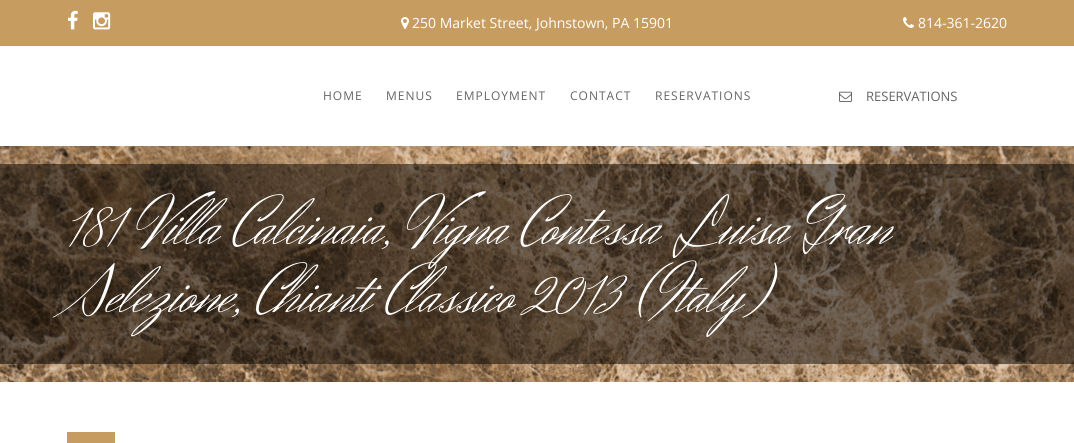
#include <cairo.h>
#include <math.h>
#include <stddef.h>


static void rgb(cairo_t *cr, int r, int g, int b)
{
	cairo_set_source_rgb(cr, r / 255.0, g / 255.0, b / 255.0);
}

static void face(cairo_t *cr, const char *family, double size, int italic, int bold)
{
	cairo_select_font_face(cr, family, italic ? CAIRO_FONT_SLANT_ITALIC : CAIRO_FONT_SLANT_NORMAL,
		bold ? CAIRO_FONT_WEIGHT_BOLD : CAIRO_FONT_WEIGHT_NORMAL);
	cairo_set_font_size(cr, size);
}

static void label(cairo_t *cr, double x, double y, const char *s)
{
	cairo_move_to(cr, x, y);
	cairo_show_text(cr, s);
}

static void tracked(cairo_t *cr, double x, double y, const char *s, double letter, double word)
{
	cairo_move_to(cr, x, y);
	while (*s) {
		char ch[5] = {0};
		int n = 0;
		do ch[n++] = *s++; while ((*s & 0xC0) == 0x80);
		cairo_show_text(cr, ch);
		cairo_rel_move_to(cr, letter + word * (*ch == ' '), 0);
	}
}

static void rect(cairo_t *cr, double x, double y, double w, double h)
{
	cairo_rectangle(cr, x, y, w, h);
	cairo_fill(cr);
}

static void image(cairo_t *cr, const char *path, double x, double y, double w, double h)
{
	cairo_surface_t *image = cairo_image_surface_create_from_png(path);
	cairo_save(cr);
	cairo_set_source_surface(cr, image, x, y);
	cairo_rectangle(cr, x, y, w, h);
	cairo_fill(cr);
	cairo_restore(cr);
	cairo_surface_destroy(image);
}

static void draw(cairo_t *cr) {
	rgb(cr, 255, 255, 255);
	cairo_paint(cr);
	rgb(cr, 199, 156, 96);
	rect(cr, 0, 0, 1074, 46);
	image(cr, "image0.png", 68, 10, 10, 20);
	image(cr, "image1.png", 93, 12, 18, 18);
	image(cr, "image2.png", 401, 17, 8, 12);
	face(cr, "Open Sans", 14, 0, 0);
	rgb(cr, 255, 255, 255);
	label(cr, 412, 28, "250 Market Street, Johnstown, PA 15901");
	image(cr, "image3.png", 903, 17, 11, 11);
	label(cr, 918, 28, "814-361-2620");
	face(cr, "Open Sans", 12, 0, 0);
	rgb(cr, 101, 101, 101);
	tracked(cr, 323, 100, "HOME", 1, 0);
	tracked(cr, 386, 100, "MENUS", 1, 0);
	tracked(cr, 456, 100, "EMPLOYMENT", 1, 0);
	tracked(cr, 570, 100, "CONTACT", 1, 0);
	tracked(cr, 655, 100, "RESERVATIONS", 1, 0);
	image(cr, "image4.png", 839, 91, 13, 11);
	face(cr, "Open Sans", 13, 0, 0);
	label(cr, 866, 101, "RESERVATIONS");
	image(cr, "image5.png", 0, 146, 1074, 236);
	cairo_set_source_rgba(cr, 0, 0, 0, 0.5);
	rect(cr, 0, 164, 1074, 200);
	face(cr, "Herr Von Muellerhoff", 68, 0, 0);
	rgb(cr, 255, 255, 255);
	label(cr, 67, 244, "181 Villa Calcinaia, Vigna Contessa Luisa Gran");
	label(cr, 67, 312, "Selezione, Chianti Classico 2013 (Italy)");
	rgb(cr, 199, 156, 96);
	rect(cr, 67, 432, 48, 11);
}

int main(void) {
	cairo_surface_t *surface = cairo_image_surface_create(CAIRO_FORMAT_RGB24, 1074, 443);
	cairo_t *cr = cairo_create(surface);
	cairo_font_options_t *options = cairo_font_options_create();
	cairo_font_options_set_hint_metrics(options, CAIRO_HINT_METRICS_OFF);
	cairo_font_options_set_hint_style(options, CAIRO_HINT_STYLE_NONE);
	cairo_set_font_options(cr, options);
	cairo_set_miter_limit(cr, 4);
	draw(cr);
	cairo_surface_write_to_png(surface, "render.png");
	cairo_font_options_destroy(options);
	cairo_destroy(cr);
	cairo_surface_destroy(surface);
	return 0;
}
